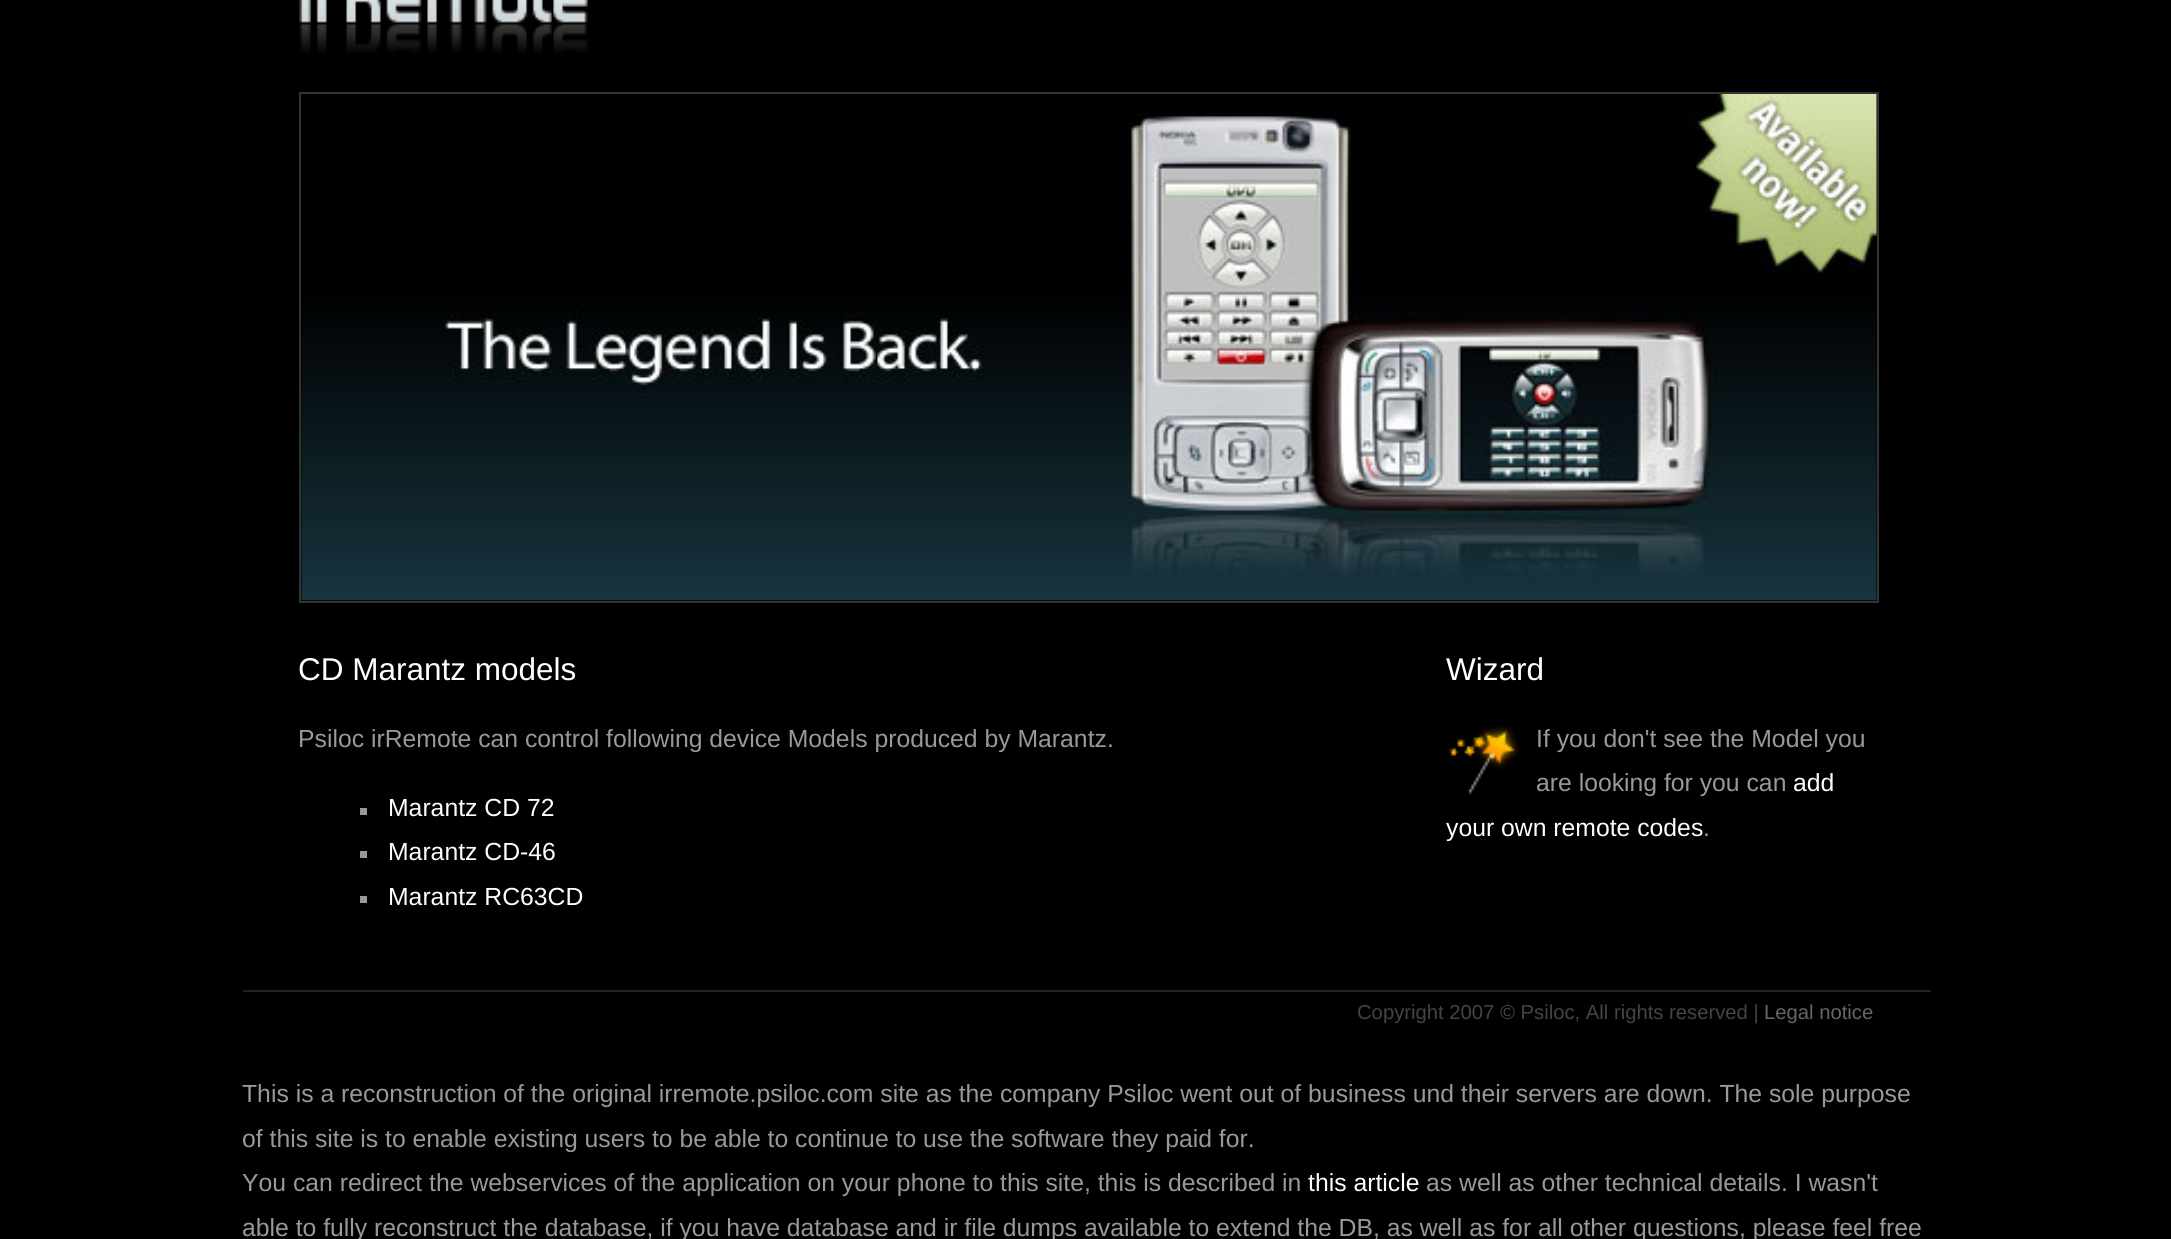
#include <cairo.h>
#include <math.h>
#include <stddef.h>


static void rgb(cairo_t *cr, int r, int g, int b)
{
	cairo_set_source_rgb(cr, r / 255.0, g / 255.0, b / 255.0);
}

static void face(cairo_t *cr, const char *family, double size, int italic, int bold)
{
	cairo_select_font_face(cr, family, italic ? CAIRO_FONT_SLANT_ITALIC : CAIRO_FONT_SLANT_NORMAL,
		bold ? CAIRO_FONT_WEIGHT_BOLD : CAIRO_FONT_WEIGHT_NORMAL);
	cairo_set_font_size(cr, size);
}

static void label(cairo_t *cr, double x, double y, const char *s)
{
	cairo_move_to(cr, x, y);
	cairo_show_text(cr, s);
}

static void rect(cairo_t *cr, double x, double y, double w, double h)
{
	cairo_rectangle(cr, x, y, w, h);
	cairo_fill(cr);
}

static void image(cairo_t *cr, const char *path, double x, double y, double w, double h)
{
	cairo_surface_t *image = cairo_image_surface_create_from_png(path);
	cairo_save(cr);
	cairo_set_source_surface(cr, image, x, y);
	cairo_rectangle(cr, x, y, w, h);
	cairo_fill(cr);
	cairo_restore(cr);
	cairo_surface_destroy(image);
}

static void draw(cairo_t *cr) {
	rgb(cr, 0, 0, 0);
	cairo_paint(cr);
	image(cr, "image0.png", 299, 0, 289, 53);
	cairo_rectangle(cr, 300, 93, 1578, 509);
	rgb(cr, 51, 51, 51);
	cairo_stroke(cr);
	image(cr, "image1.png", 301, 94, 1576, 507);
	face(cr, "Liberation Sans", 31.5, 0, 0);
	rgb(cr, 255, 255, 255);
	label(cr, 298, 680, "CD Marantz models");
	face(cr, "Liberation Sans", 24.75, 0, 0);
	rgb(cr, 153, 153, 153);
	label(cr, 298, 747, "Psiloc irRemote can control following device Models produced by Marantz.");
	rect(cr, 360, 808, 7, 7);
	rgb(cr, 255, 255, 255);
	label(cr, 388, 816, "Marantz CD 72");
	rgb(cr, 153, 153, 153);
	rect(cr, 360, 851, 7, 7);
	rgb(cr, 255, 255, 255);
	label(cr, 388, 860, "Marantz CD-46");
	rgb(cr, 153, 153, 153);
	rect(cr, 360, 896, 7, 7);
	rgb(cr, 255, 255, 255);
	label(cr, 388, 905, "Marantz RC63CD");
	face(cr, "Liberation Sans", 31.5, 0, 0);
	label(cr, 1446, 680, "Wizard");
	image(cr, "image2.png", 1448, 726, 71, 69);
	face(cr, "Liberation Sans", 24.75, 0, 0);
	rgb(cr, 153, 153, 153);
	label(cr, 1536, 747, "If you don't see the Model you");
	label(cr, 1536, 791, "are looking for you can");
	rgb(cr, 255, 255, 255);
	label(cr, 1793, 791, "add");
	label(cr, 1446, 836, "your own remote codes");
	rgb(cr, 153, 153, 153);
	label(cr, 1703, 836, ".");
	rgb(cr, 34, 34, 34);
	rect(cr, 243, 990, 1688, 2);
	face(cr, "Liberation Sans", 20.25, 0, 0);
	rgb(cr, 68, 68, 68);
	label(cr, 1357, 1019, "Copyright 2007 © Psiloc, All rights reserved |");
	rgb(cr, 102, 102, 102);
	label(cr, 1764, 1019, "Legal notice");
	face(cr, "Liberation Sans", 24.75, 0, 0);
	rgb(cr, 153, 153, 153);
	label(cr, 242, 1102, "This is a reconstruction of the original irremote.psiloc.com site as the company Psiloc went out of business und their servers are down. The sole purpose");
	label(cr, 242, 1147, "of this site is to enable existing users to be able to continue to use the software they paid for.");
	label(cr, 242, 1191, "You can redirect the webservices of the application on your phone to this site, this is described in");
	rgb(cr, 255, 255, 255);
	label(cr, 1308, 1191, "this article");
	rgb(cr, 153, 153, 153);
	label(cr, 1426, 1191, "as well as other technical details. I wasn't");
	label(cr, 242, 1236, "able to fully reconstruct the database, if you have database and ir file dumps available to extend the DB, as well as for all other questions, please feel free");
}

int main(void) {
	cairo_surface_t *surface = cairo_image_surface_create(CAIRO_FORMAT_RGB24, 2171, 1239);
	cairo_t *cr = cairo_create(surface);
	cairo_font_options_t *options = cairo_font_options_create();
	cairo_font_options_set_hint_metrics(options, CAIRO_HINT_METRICS_OFF);
	cairo_font_options_set_hint_style(options, CAIRO_HINT_STYLE_NONE);
	cairo_set_font_options(cr, options);
	cairo_set_miter_limit(cr, 4);
	draw(cr);
	cairo_surface_write_to_png(surface, "render.png");
	cairo_font_options_destroy(options);
	cairo_destroy(cr);
	cairo_surface_destroy(surface);
	return 0;
}
